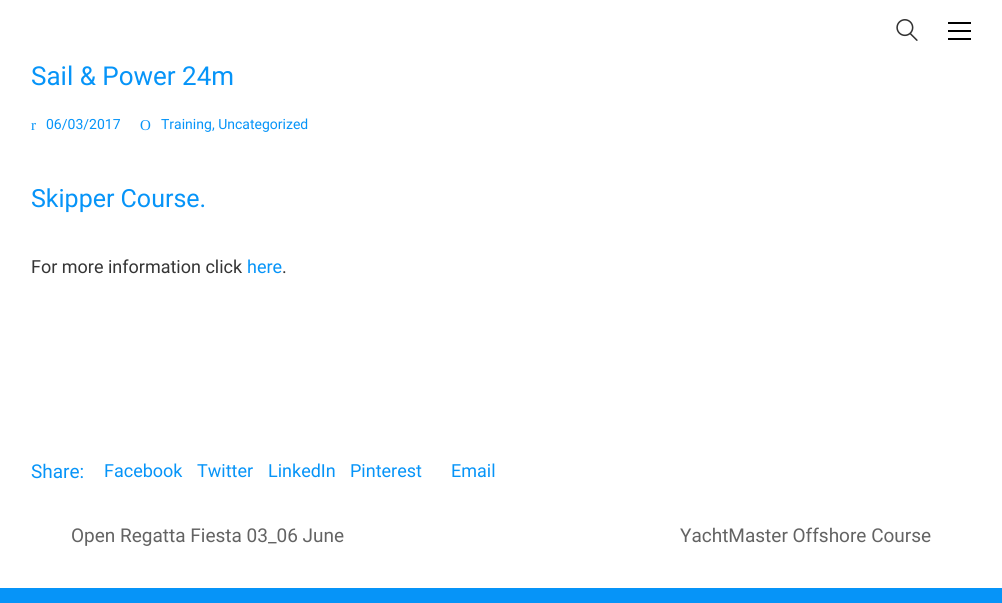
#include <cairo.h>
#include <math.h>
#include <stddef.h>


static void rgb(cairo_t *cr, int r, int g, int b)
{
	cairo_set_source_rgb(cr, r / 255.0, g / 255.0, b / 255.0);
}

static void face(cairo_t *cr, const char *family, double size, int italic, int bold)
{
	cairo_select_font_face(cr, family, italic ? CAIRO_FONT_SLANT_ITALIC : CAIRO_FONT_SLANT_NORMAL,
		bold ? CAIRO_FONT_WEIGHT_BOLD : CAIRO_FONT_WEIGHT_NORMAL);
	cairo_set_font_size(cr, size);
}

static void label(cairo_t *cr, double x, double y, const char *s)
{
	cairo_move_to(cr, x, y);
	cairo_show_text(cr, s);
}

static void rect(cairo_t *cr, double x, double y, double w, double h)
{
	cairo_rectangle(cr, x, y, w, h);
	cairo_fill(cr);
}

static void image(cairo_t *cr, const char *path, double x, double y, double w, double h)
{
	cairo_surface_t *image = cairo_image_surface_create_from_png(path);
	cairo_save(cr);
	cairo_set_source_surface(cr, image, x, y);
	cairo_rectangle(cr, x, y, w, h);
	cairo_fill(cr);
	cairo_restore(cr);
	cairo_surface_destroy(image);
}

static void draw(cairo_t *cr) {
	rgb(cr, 255, 255, 255);
	cairo_paint(cr);
	image(cr, "image0.png", 896, 19, 22, 22);
	rgb(cr, 0, 0, 0);
	rect(cr, 948, 22, 23, 2);
	rect(cr, 948, 30, 23, 2);
	rect(cr, 948, 38, 23, 2);
	face(cr, "Roboto", 26, 0, 0);
	rgb(cr, 6, 148, 248);
	label(cr, 31, 85, "Sail & Power 24m");
	face(cr, "Liberation Serif", 15, 0, 0);
	label(cr, 31, 130, "r");
	face(cr, "Roboto", 14, 0, 0);
	label(cr, 46, 129, "06/03/2017");
	face(cr, "Liberation Serif", 15, 0, 0);
	label(cr, 140, 130, "O");
	face(cr, "Roboto", 14, 0, 0);
	label(cr, 161, 129, "Training");
	label(cr, 212, 129, ", Uncategorized");
	face(cr, "Roboto", 25, 0, 0);
	label(cr, 31, 207, "Skipper Course.");
	face(cr, "Roboto", 18, 0, 0);
	rgb(cr, 53, 53, 53);
	label(cr, 31, 273, "For more information click");
	rgb(cr, 6, 148, 248);
	label(cr, 247, 273, "here");
	rgb(cr, 53, 53, 53);
	label(cr, 282, 273, ".");
	face(cr, "Roboto", 19, 0, 0);
	rgb(cr, 6, 148, 248);
	label(cr, 31, 478, "Share:");
	face(cr, "Roboto", 18, 0, 0);
	label(cr, 104, 477, "Facebook");
	label(cr, 197, 477, "Twitter");
	label(cr, 268, 477, "LinkedIn");
	label(cr, 350, 477, "Pinterest");
	label(cr, 451, 477, "Email");
	face(cr, "Roboto", 19, 0, 0);
	rgb(cr, 99, 99, 99);
	label(cr, 71, 542, "Open Regatta Fiesta 03_06 June");
	label(cr, 680, 542, "YachtMaster Offshore Course");
	rgb(cr, 6, 148, 248);
	rect(cr, 0, 588, 1002, 15);
}

int main(void) {
	cairo_surface_t *surface = cairo_image_surface_create(CAIRO_FORMAT_RGB24, 1002, 603);
	cairo_t *cr = cairo_create(surface);
	cairo_font_options_t *options = cairo_font_options_create();
	cairo_font_options_set_hint_metrics(options, CAIRO_HINT_METRICS_OFF);
	cairo_font_options_set_hint_style(options, CAIRO_HINT_STYLE_NONE);
	cairo_set_font_options(cr, options);
	cairo_set_miter_limit(cr, 4);
	draw(cr);
	cairo_surface_write_to_png(surface, "render.png");
	cairo_font_options_destroy(options);
	cairo_destroy(cr);
	cairo_surface_destroy(surface);
	return 0;
}
